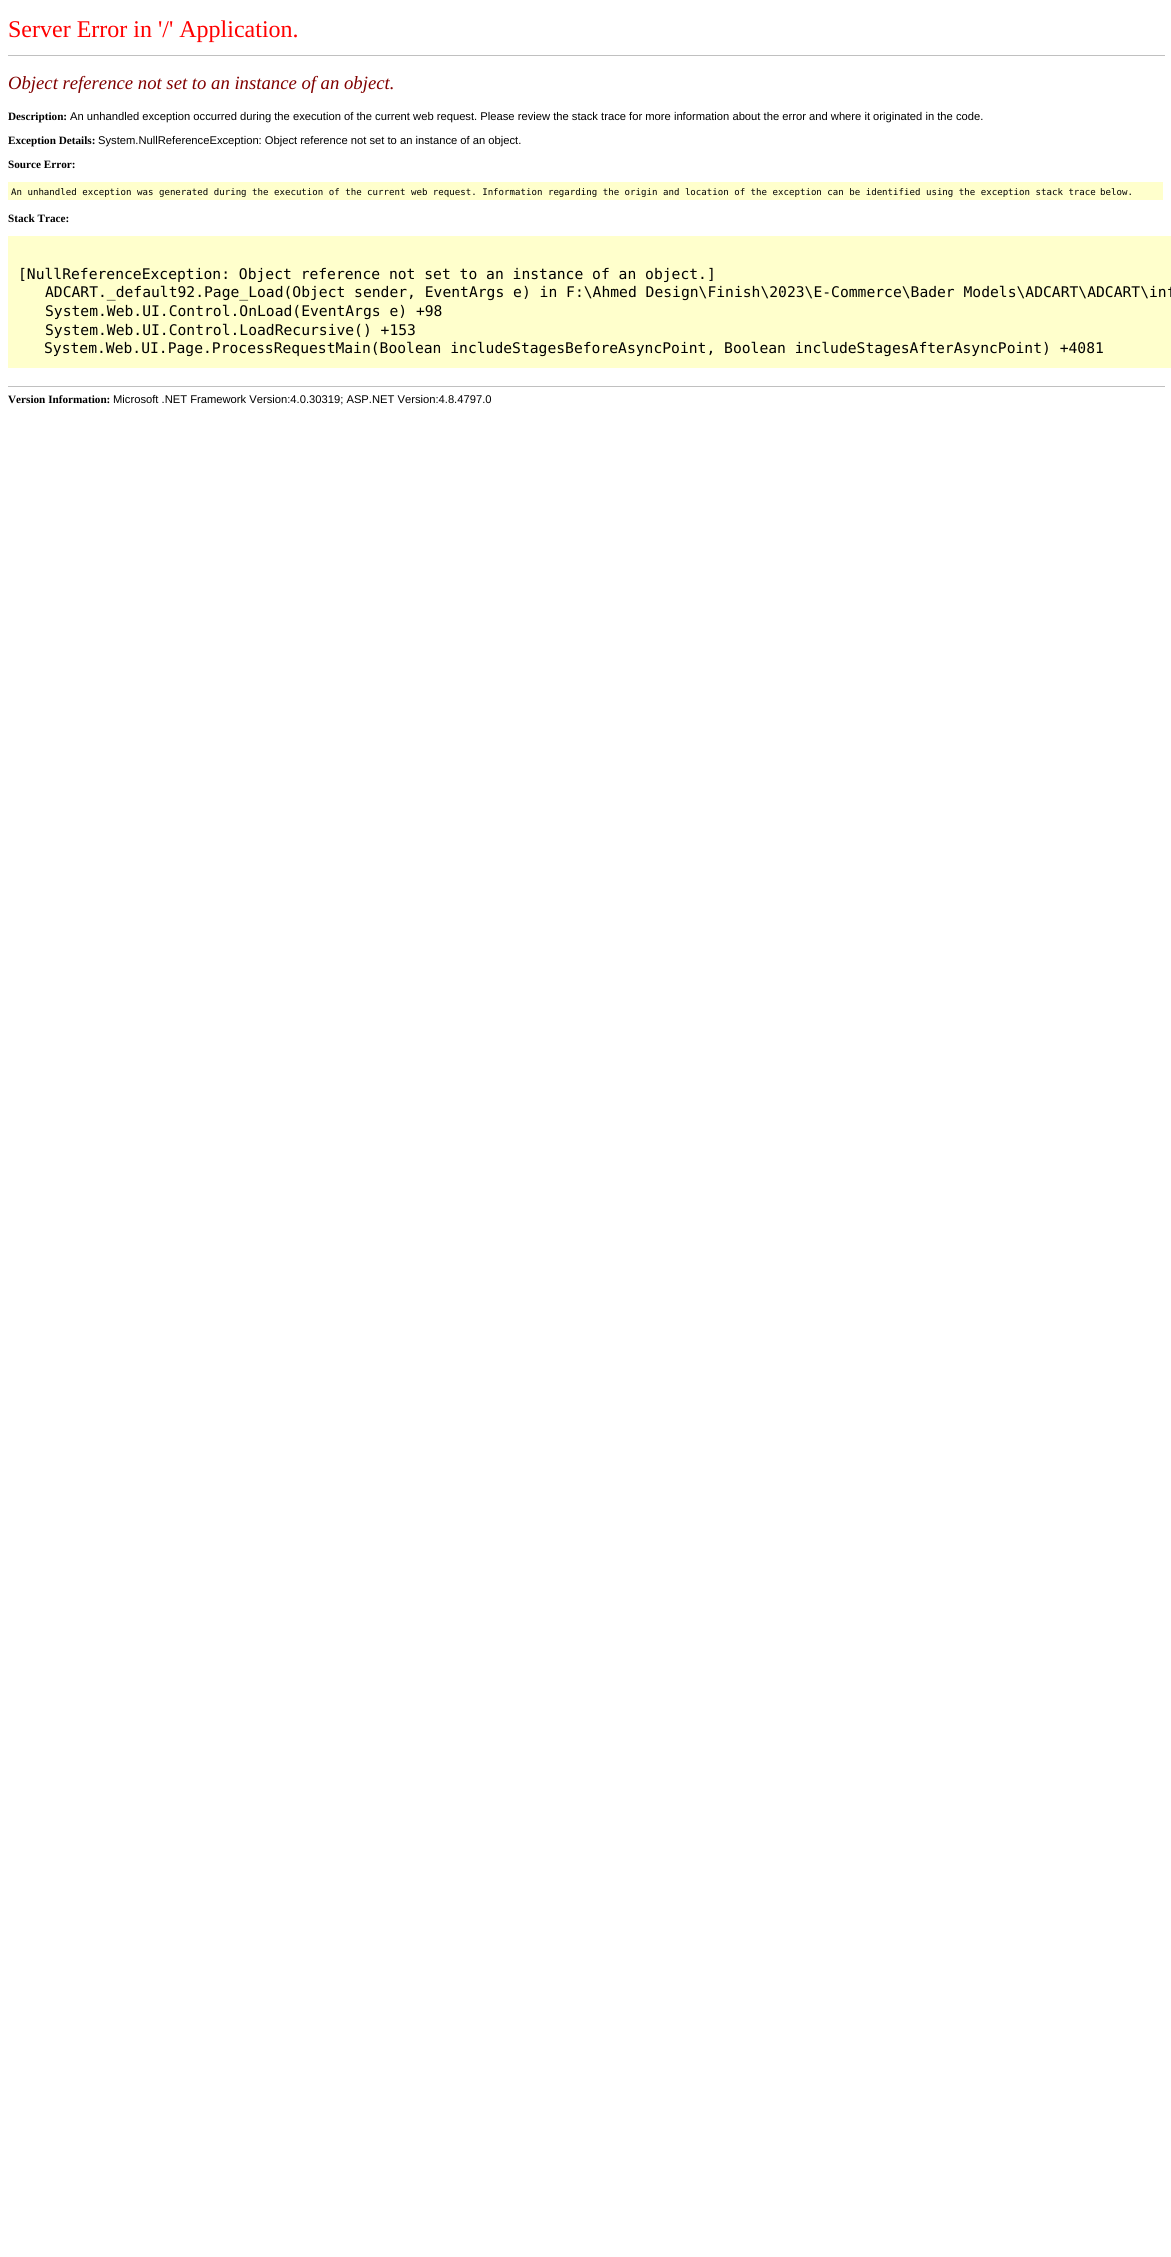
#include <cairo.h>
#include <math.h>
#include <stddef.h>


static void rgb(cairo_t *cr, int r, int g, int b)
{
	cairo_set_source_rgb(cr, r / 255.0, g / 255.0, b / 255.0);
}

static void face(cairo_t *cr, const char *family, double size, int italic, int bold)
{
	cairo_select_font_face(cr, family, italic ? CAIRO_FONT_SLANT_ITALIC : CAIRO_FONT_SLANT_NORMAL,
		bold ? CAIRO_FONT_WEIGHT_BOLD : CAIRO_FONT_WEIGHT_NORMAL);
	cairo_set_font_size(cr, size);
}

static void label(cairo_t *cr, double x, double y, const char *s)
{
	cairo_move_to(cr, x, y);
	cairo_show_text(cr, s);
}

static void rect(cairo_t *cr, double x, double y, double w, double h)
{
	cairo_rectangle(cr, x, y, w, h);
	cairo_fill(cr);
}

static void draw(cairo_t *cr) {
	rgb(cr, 255, 255, 255);
	cairo_paint(cr);
	face(cr, "Liberation Serif", 24, 0, 0);
	rgb(cr, 255, 0, 0);
	label(cr, 8, 37, "Server Error in '/' Application.");
	rgb(cr, 192, 192, 192);
	rect(cr, 8, 55, 1157, 1);
	face(cr, "Liberation Serif", 18.7, 1, 0);
	rgb(cr, 128, 0, 0);
	label(cr, 8, 89, "Object reference not set to an instance of an object.");
	face(cr, "Liberation Serif", 11.2, 0, 1);
	rgb(cr, 0, 0, 0);
	label(cr, 8, 120, "Description:");
	face(cr, "Liberation Sans", 11.2, 0, 0);
	label(cr, 70, 120, "An unhandled exception occurred during the execution of the current web request. Please review the stack trace for more information about the error and where it originated in the code.");
	face(cr, "Liberation Serif", 11.2, 0, 1);
	label(cr, 8, 144, "Exception Details:");
	face(cr, "Liberation Sans", 11.2, 0, 0);
	label(cr, 98, 144, "System.NullReferenceException: Object reference not set to an instance of an object.");
	face(cr, "Liberation Serif", 11.2, 0, 1);
	label(cr, 8, 168, "Source Error:");
	rgb(cr, 255, 255, 204);
	rect(cr, 8, 182, 1155, 18);
	face(cr, "DejaVu Sans Mono", 9.1, 0, 0);
	rgb(cr, 0, 0, 0);
	label(cr, 11, 195, "An unhandled exception was generated during the execution of the current web request. Information regarding the origin and location of the exception can be identified using the exception stack trace");
	label(cr, 1100, 195, "below.");
	face(cr, "Liberation Serif", 11.2, 0, 1);
	label(cr, 8, 222, "Stack Trace:");
	rgb(cr, 255, 255, 204);
	rect(cr, 8, 236, 1163, 132);
	face(cr, "DejaVu Sans Mono", 14.67, 0, 0);
	rgb(cr, 0, 0, 0);
	label(cr, 18, 279, "[NullReferenceException: Object reference not set to an instance of an object.]");
	label(cr, 45, 297, "ADCART._default92.Page_Load(Object sender, EventArgs e) in F:\\Ahmed Design\\Finish\\2023\\E-Commerce\\Bader Models\\ADCART\\ADCART\\inf");
	label(cr, 45, 316, "System.Web.UI.Control.OnLoad(EventArgs e) +98");
	label(cr, 45, 335, "System.Web.UI.Control.LoadRecursive() +153");
	label(cr, 44, 353, "System.Web.UI.Page.ProcessRequestMain(Boolean includeStagesBeforeAsyncPoint, Boolean includeStagesAfterAsyncPoint) +4081");
	rgb(cr, 192, 192, 192);
	rect(cr, 8, 386, 1157, 1);
	face(cr, "Liberation Serif", 11.2, 0, 1);
	rgb(cr, 0, 0, 0);
	label(cr, 8, 403, "Version Information:");
	face(cr, "Liberation Sans", 11.2, 0, 0);
	label(cr, 113, 403, "Microsoft .NET Framework Version:4.0.30319; ASP.NET Version:4.8.4797.0");
}

int main(void) {
	cairo_surface_t *surface = cairo_image_surface_create(CAIRO_FORMAT_RGB24, 1171, 2257);
	cairo_t *cr = cairo_create(surface);
	cairo_font_options_t *options = cairo_font_options_create();
	cairo_font_options_set_hint_metrics(options, CAIRO_HINT_METRICS_OFF);
	cairo_font_options_set_hint_style(options, CAIRO_HINT_STYLE_NONE);
	cairo_set_font_options(cr, options);
	cairo_set_miter_limit(cr, 4);
	draw(cr);
	cairo_surface_write_to_png(surface, "render.png");
	cairo_font_options_destroy(options);
	cairo_destroy(cr);
	cairo_surface_destroy(surface);
	return 0;
}
